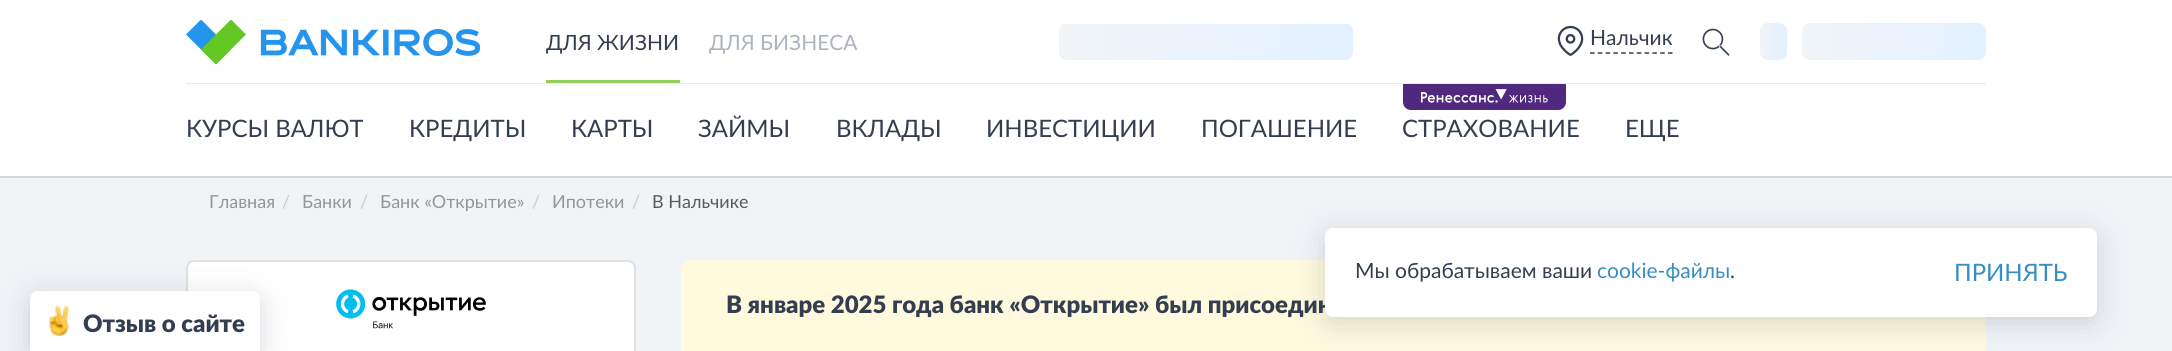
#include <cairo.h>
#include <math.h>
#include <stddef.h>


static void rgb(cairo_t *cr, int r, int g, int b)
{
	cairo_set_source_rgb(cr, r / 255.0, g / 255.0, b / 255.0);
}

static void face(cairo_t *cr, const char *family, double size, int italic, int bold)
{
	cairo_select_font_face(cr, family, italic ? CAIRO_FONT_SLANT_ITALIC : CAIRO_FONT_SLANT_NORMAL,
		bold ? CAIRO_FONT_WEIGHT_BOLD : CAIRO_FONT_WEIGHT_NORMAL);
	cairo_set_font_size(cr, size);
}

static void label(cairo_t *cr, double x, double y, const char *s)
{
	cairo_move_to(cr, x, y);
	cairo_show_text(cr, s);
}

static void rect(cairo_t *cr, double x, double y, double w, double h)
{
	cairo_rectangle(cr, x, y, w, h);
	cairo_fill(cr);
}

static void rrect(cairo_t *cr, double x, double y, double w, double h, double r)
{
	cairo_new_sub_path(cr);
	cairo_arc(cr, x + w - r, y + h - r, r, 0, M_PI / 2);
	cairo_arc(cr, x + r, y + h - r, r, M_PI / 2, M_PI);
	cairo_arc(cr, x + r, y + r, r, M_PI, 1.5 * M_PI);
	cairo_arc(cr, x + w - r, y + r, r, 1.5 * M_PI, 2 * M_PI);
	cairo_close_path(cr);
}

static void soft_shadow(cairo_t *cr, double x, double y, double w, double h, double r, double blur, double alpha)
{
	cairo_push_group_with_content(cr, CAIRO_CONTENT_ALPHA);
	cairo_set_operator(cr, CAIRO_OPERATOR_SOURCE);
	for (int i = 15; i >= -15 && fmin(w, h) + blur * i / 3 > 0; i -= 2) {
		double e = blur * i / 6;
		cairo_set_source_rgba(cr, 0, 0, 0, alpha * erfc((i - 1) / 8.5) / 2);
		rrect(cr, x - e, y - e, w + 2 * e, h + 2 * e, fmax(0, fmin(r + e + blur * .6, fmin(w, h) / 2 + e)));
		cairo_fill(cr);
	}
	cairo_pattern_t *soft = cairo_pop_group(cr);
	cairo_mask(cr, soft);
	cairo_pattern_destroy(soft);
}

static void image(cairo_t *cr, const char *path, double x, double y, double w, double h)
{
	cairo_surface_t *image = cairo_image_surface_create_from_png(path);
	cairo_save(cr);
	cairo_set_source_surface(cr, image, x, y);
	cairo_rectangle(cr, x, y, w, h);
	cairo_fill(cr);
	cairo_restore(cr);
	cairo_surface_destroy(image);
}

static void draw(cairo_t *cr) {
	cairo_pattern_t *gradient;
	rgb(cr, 241, 244, 247);
	cairo_paint(cr);
	rgb(cr, 255, 255, 255);
	rect(cr, 0, 0, 2172, 176);
	rgb(cr, 232, 236, 239);
	rect(cr, 186, 83, 1800, 1);
	image(cr, "image0.png", 186, 20, 294, 45);
	face(cr, "Lato", 21, 0, 0);
	rgb(cr, 51, 62, 80);
	label(cr, 546, 50, "ДЛЯ ЖИЗНИ");
	rgb(cr, 149, 206, 90);
	rect(cr, 546, 80, 134, 3);
	rgb(cr, 173, 180, 191);
	label(cr, 709, 50, "ДЛЯ БИЗНЕСА");
	cairo_save(cr);
	rrect(cr, 1059, 23, 294, 37, 8);
	cairo_clip(cr);
	gradient = cairo_pattern_create_linear(1059, 61, 1647, 61);
	cairo_pattern_add_color_stop_rgba(gradient, 0, 0.945, 0.957, 0.969, 1);
	cairo_pattern_add_color_stop_rgba(gradient, 0.5, 0.886, 0.945, 1, 1);
	cairo_pattern_add_color_stop_rgba(gradient, 0.98, 0.945, 0.957, 0.969, 1);
	cairo_set_source(cr, gradient);
	cairo_pattern_destroy(gradient);
	cairo_new_path(cr);
	cairo_move_to(cr, 1059, 24);
	cairo_line_to(cr, 1353, 24);
	cairo_line_to(cr, 1353, 52);
	cairo_curve_to(cr, 1353, 56.5, 1349.5, 60, 1345, 60);
	cairo_line_to(cr, 1067, 60);
	cairo_curve_to(cr, 1062.5, 60, 1059, 56.5, 1059, 52);
	cairo_close_path(cr);
	cairo_fill(cr);
	cairo_restore(cr);
	image(cr, "image1.png", 1557, 25, 27, 31);
	cairo_new_path(cr);
	cairo_move_to(cr, 1590, 53);
	cairo_line_to(cr, 1672.5, 53);
	rgb(cr, 52, 63, 81);
	cairo_set_line_width(cr, 1.5);
	cairo_set_dash(cr, (double[]){4.5, 3.3}, 2, 0);
	cairo_stroke(cr);
	rgb(cr, 51, 62, 80);
	label(cr, 1590, 45, "Нальчик");
	image(cr, "image2.png", 1702, 28, 28, 28);
	gradient = cairo_pattern_create_linear(1760, 60, 1814, 60);
	cairo_pattern_add_color_stop_rgba(gradient, 0, 0.945, 0.957, 0.969, 1);
	cairo_pattern_add_color_stop_rgba(gradient, 0.5, 0.886, 0.945, 1, 1);
	cairo_pattern_add_color_stop_rgba(gradient, 0.98, 0.945, 0.957, 0.969, 1);
	cairo_set_source(cr, gradient);
	cairo_pattern_destroy(gradient);
	rrect(cr, 1760, 23, 27, 37, 8);
	cairo_fill(cr);
	gradient = cairo_pattern_create_linear(1801, 60, 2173, 60);
	cairo_pattern_add_color_stop_rgba(gradient, 0, 0.945, 0.957, 0.969, 1);
	cairo_pattern_add_color_stop_rgba(gradient, 0.5, 0.886, 0.945, 1, 1);
	cairo_pattern_add_color_stop_rgba(gradient, 0.98, 0.945, 0.957, 0.969, 1);
	cairo_set_source(cr, gradient);
	cairo_pattern_destroy(gradient);
	rrect(cr, 1802, 23, 184, 37, 8);
	cairo_fill(cr);
	rgb(cr, 215, 215, 215);
	rect(cr, 0, 176, 2172, 2);
	face(cr, "Lato", 24, 0, 0);
	rgb(cr, 51, 62, 80);
	label(cr, 186, 137, "КУРСЫ ВАЛЮТ");
	label(cr, 409, 137, "КРЕДИТЫ");
	label(cr, 571, 137, "КАРТЫ");
	label(cr, 698, 137, "ЗАЙМЫ");
	label(cr, 836, 137, "ВКЛАДЫ");
	label(cr, 986, 137, "ИНВЕСТИЦИИ");
	label(cr, 1201, 137, "ПОГАШЕНИЕ");
	rgb(cr, 80, 40, 125);
	cairo_new_path(cr);
	cairo_move_to(cr, 1403, 84);
	cairo_line_to(cr, 1566, 84);
	cairo_line_to(cr, 1566, 102);
	cairo_curve_to(cr, 1566, 106.5, 1562.5, 110, 1558, 110);
	cairo_line_to(cr, 1411, 110);
	cairo_curve_to(cr, 1406.5, 110, 1403, 106.5, 1403, 102);
	cairo_close_path(cr);
	cairo_fill(cr);
	image(cr, "image3.png", 1421, 89, 127, 14);
	rgb(cr, 51, 62, 80);
	label(cr, 1402, 137, "СТРАХОВАНИЕ");
	label(cr, 1625, 137, "ЕЩЕ");
	face(cr, "Lato", 18, 0, 0);
	rgb(cr, 149, 149, 149);
	label(cr, 209, 208, "Главная");
	rgb(cr, 204, 204, 204);
	label(cr, 282, 208, "/");
	rgb(cr, 149, 149, 149);
	label(cr, 302, 208, "Банки");
	rgb(cr, 204, 204, 204);
	label(cr, 360, 208, "/");
	rgb(cr, 149, 149, 149);
	label(cr, 380, 208, "Банк «Открытие»");
	rgb(cr, 204, 204, 204);
	label(cr, 532, 208, "/");
	rgb(cr, 149, 149, 149);
	label(cr, 552, 208, "Ипотеки");
	rgb(cr, 204, 204, 204);
	label(cr, 632, 208, "/");
	rgb(cr, 90, 90, 90);
	label(cr, 652, 208, "В Нальчике");
	rgb(cr, 255, 250, 222);
	rrect(cr, 681, 260, 1305, 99, 8);
	cairo_fill(cr);
	rgb(cr, 51, 62, 80);
	soft_shadow(cr, 1325, 234, 772, 89, 8, 15, 0.2);
	face(cr, "Lato Black", 24, 0, 0);
	rgb(cr, 51, 62, 80);
	label(cr, 726, 313, "В январе 2025 года банк «Открытие» был присоедин");
	rgb(cr, 255, 255, 255);
	rrect(cr, 1325, 228, 772, 89, 8);
	cairo_fill(cr);
	face(cr, "Lato", 21, 0, 0);
	rgb(cr, 51, 62, 80);
	label(cr, 1355, 278, "Мы обрабатываем ваши");
	rgb(cr, 56, 142, 195);
	label(cr, 1597, 278, "cookie-файлы");
	rgb(cr, 51, 62, 80);
	label(cr, 1730, 278, ".");
	face(cr, "Lato", 24, 0, 0);
	rgb(cr, 56, 142, 195);
	label(cr, 1954, 281, "ПРИНЯТЬ");
	rgb(cr, 255, 255, 255);
	rrect(cr, 187, 261, 448, 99, 7);
	cairo_fill_preserve(cr);
	rgb(cr, 225, 225, 225);
	cairo_set_line_width(cr, 2);
	cairo_set_dash(cr, NULL, 0, 0);
	cairo_stroke(cr);
	image(cr, "image4.png", 336, 289, 150, 40);
	rgb(cr, 51, 62, 80);
	soft_shadow(cr, 30, 297, 230, 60, 8, 15, 0.2);
	rgb(cr, 255, 255, 255);
	cairo_new_path(cr);
	cairo_move_to(cr, 38, 291);
	cairo_line_to(cr, 252, 291);
	cairo_curve_to(cr, 256.5, 291, 260, 294.5, 260, 299);
	cairo_line_to(cr, 260, 351);
	cairo_line_to(cr, 30, 351);
	cairo_line_to(cr, 30, 299);
	cairo_curve_to(cr, 30, 294.5, 33.5, 291, 38, 291);
	cairo_close_path(cr);
	cairo_fill(cr);
	image(cr, "image5.png", 49, 306, 21, 30);
	face(cr, "Lato Black", 24, 0, 0);
	rgb(cr, 51, 62, 80);
	label(cr, 83, 332, "Отзыв о сайте");
}

int main(void) {
	cairo_surface_t *surface = cairo_image_surface_create(CAIRO_FORMAT_RGB24, 2172, 351);
	cairo_t *cr = cairo_create(surface);
	cairo_font_options_t *options = cairo_font_options_create();
	cairo_font_options_set_hint_metrics(options, CAIRO_HINT_METRICS_OFF);
	cairo_font_options_set_hint_style(options, CAIRO_HINT_STYLE_NONE);
	cairo_set_font_options(cr, options);
	cairo_set_miter_limit(cr, 4);
	draw(cr);
	cairo_surface_write_to_png(surface, "render.png");
	cairo_font_options_destroy(options);
	cairo_destroy(cr);
	cairo_surface_destroy(surface);
	return 0;
}
